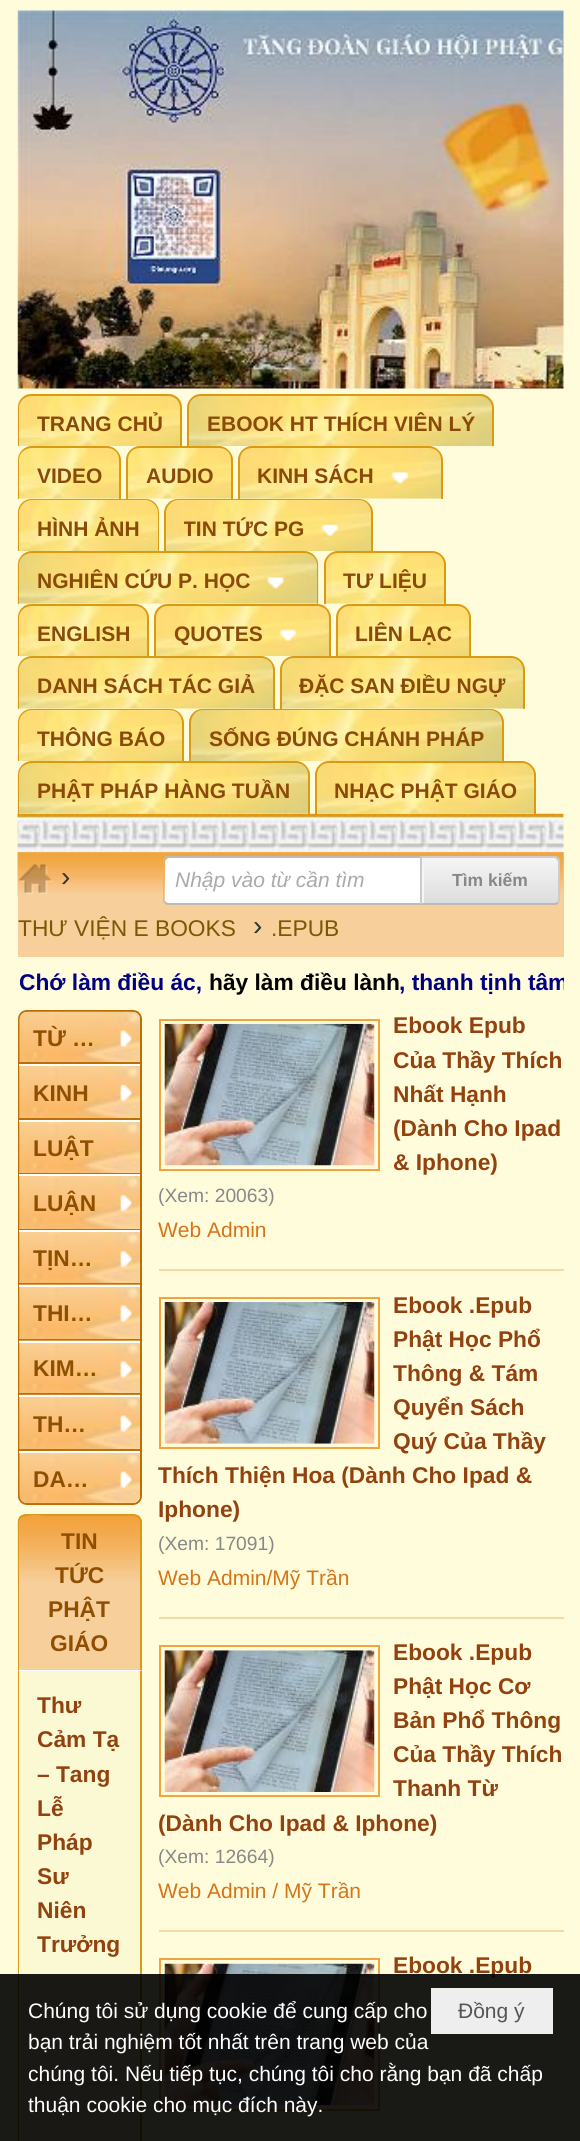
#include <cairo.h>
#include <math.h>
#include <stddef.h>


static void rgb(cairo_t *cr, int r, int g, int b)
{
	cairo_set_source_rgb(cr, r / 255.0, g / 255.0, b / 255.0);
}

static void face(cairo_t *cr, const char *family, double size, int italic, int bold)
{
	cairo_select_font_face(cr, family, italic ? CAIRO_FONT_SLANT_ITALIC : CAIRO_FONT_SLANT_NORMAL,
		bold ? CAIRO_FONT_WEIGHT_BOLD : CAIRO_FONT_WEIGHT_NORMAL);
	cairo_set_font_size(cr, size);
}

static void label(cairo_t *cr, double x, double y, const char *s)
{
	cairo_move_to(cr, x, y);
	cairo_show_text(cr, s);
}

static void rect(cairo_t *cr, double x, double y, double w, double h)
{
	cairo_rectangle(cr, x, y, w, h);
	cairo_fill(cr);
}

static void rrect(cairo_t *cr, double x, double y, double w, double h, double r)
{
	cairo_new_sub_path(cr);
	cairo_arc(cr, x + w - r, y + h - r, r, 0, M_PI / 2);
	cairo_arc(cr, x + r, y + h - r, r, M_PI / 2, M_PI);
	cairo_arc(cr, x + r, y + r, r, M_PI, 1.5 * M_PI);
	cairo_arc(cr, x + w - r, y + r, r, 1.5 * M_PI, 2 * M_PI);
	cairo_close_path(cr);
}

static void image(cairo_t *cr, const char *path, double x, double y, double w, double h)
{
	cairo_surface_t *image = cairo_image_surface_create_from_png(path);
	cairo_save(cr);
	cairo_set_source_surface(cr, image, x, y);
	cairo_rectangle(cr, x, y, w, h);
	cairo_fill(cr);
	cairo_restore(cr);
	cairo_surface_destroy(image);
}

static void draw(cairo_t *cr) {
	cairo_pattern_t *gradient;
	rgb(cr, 255, 252, 220);
	cairo_paint(cr);
	image(cr, "image0.png", 17, 10, 547, 379);
	image(cr, "image1.png", 17, 813, 547, 40);
	image(cr, "image2.png", 17, 393, 165, 54);
	rgb(cr, 219, 154, 20);
	cairo_set_fill_rule(cr, CAIRO_FILL_RULE_EVEN_ODD);
	cairo_new_path(cr);
	cairo_move_to(cr, 32, 394);
	cairo_line_to(cr, 168, 394);
	cairo_curve_to(cr, 176, 394, 182, 400, 182, 408);
	cairo_line_to(cr, 182, 446);
	cairo_line_to(cr, 18, 446);
	cairo_line_to(cr, 18, 408);
	cairo_curve_to(cr, 18, 400, 24, 394, 32, 394);
	cairo_close_path(cr);
	cairo_move_to(cr, 32, 396);
	cairo_line_to(cr, 168, 396);
	cairo_curve_to(cr, 175, 396, 180, 401, 180, 408);
	cairo_line_to(cr, 180, 446);
	cairo_line_to(cr, 19, 446);
	cairo_line_to(cr, 19, 408);
	cairo_curve_to(cr, 19, 401, 25, 396, 32, 396);
	cairo_close_path(cr);
	cairo_fill(cr);
	face(cr, "Liberation Sans", 21, 0, 1);
	rgb(cr, 138, 74, 10);
	label(cr, 37, 431, "TRANG CHỦ");
	image(cr, "image3.png", 187, 393, 307, 54);
	rgb(cr, 219, 154, 20);
	cairo_new_path(cr);
	cairo_move_to(cr, 201, 394);
	cairo_line_to(cr, 480, 394);
	cairo_curve_to(cr, 487, 394, 494, 400, 494, 408);
	cairo_line_to(cr, 494, 446);
	cairo_line_to(cr, 187, 446);
	cairo_line_to(cr, 187, 408);
	cairo_curve_to(cr, 187, 400, 194, 394, 201, 394);
	cairo_close_path(cr);
	cairo_move_to(cr, 201, 396);
	cairo_line_to(cr, 480, 396);
	cairo_curve_to(cr, 486, 396, 492, 401, 492, 408);
	cairo_line_to(cr, 492, 446);
	cairo_line_to(cr, 189, 446);
	cairo_line_to(cr, 189, 408);
	cairo_curve_to(cr, 189, 401, 194, 396, 201, 396);
	cairo_close_path(cr);
	cairo_fill(cr);
	rgb(cr, 138, 74, 10);
	label(cr, 207, 431, "EBOOK HT THÍCH VIÊN LÝ");
	image(cr, "image4.png", 17, 446, 104, 53);
	rgb(cr, 219, 154, 20);
	cairo_new_path(cr);
	cairo_move_to(cr, 32, 446);
	cairo_line_to(cr, 107, 446);
	cairo_curve_to(cr, 114, 446, 121, 453, 121, 460);
	cairo_line_to(cr, 121, 499);
	cairo_line_to(cr, 18, 499);
	cairo_line_to(cr, 18, 460);
	cairo_curve_to(cr, 18, 453, 24, 446, 32, 446);
	cairo_close_path(cr);
	cairo_move_to(cr, 32, 448);
	cairo_line_to(cr, 107, 448);
	cairo_curve_to(cr, 114, 448, 119, 453, 119, 460);
	cairo_line_to(cr, 119, 499);
	cairo_line_to(cr, 19, 499);
	cairo_line_to(cr, 19, 460);
	cairo_curve_to(cr, 19, 453, 25, 448, 32, 448);
	cairo_close_path(cr);
	cairo_fill(cr);
	rgb(cr, 138, 74, 10);
	label(cr, 37, 483, "VIDEO");
	image(cr, "image5.png", 126, 446, 107, 53);
	rgb(cr, 219, 154, 20);
	cairo_new_path(cr);
	cairo_move_to(cr, 140, 446);
	cairo_line_to(cr, 219, 446);
	cairo_curve_to(cr, 226, 446, 233, 453, 233, 460);
	cairo_line_to(cr, 233, 499);
	cairo_line_to(cr, 126, 499);
	cairo_line_to(cr, 126, 460);
	cairo_curve_to(cr, 126, 453, 132, 446, 140, 446);
	cairo_close_path(cr);
	cairo_move_to(cr, 140, 448);
	cairo_line_to(cr, 219, 448);
	cairo_curve_to(cr, 226, 448, 231, 453, 231, 460);
	cairo_line_to(cr, 231, 499);
	cairo_line_to(cr, 128, 499);
	cairo_line_to(cr, 128, 460);
	cairo_curve_to(cr, 128, 453, 133, 448, 140, 448);
	cairo_close_path(cr);
	cairo_fill(cr);
	rgb(cr, 138, 74, 10);
	label(cr, 146, 483, "AUDIO");
	image(cr, "image6.png", 238, 446, 205, 53);
	rgb(cr, 219, 154, 20);
	cairo_new_path(cr);
	cairo_move_to(cr, 252, 446);
	cairo_line_to(cr, 429, 446);
	cairo_curve_to(cr, 436, 446, 443, 453, 443, 460);
	cairo_line_to(cr, 443, 499);
	cairo_line_to(cr, 238, 499);
	cairo_line_to(cr, 238, 460);
	cairo_curve_to(cr, 238, 453, 244, 446, 252, 446);
	cairo_close_path(cr);
	cairo_move_to(cr, 252, 448);
	cairo_line_to(cr, 429, 448);
	cairo_curve_to(cr, 436, 448, 441, 453, 441, 460);
	cairo_line_to(cr, 441, 499);
	cairo_line_to(cr, 240, 499);
	cairo_line_to(cr, 240, 460);
	cairo_curve_to(cr, 240, 453, 245, 448, 252, 448);
	cairo_close_path(cr);
	cairo_fill(cr);
	rgb(cr, 138, 74, 10);
	label(cr, 257, 483, "KINH SÁCH");
	image(cr, "image7.png", 391, 472, 18, 12);
	image(cr, "image8.png", 17, 498, 143, 54);
	rgb(cr, 219, 154, 20);
	cairo_new_path(cr);
	cairo_move_to(cr, 32, 499);
	cairo_line_to(cr, 145, 499);
	cairo_curve_to(cr, 153, 499, 159, 505, 159, 513);
	cairo_line_to(cr, 159, 551);
	cairo_line_to(cr, 18, 551);
	cairo_line_to(cr, 18, 513);
	cairo_curve_to(cr, 18, 505, 24, 499, 32, 499);
	cairo_close_path(cr);
	cairo_move_to(cr, 32, 500);
	cairo_line_to(cr, 145, 500);
	cairo_curve_to(cr, 152, 500, 158, 506, 158, 513);
	cairo_line_to(cr, 158, 551);
	cairo_line_to(cr, 19, 551);
	cairo_line_to(cr, 19, 513);
	cairo_curve_to(cr, 19, 506, 25, 500, 32, 500);
	cairo_close_path(cr);
	cairo_fill(cr);
	rgb(cr, 138, 74, 10);
	label(cr, 37, 536, "HÌNH ẢNH");
	image(cr, "image9.png", 164, 498, 209, 54);
	rgb(cr, 219, 154, 20);
	cairo_new_path(cr);
	cairo_move_to(cr, 178, 499);
	cairo_line_to(cr, 359, 499);
	cairo_curve_to(cr, 366, 499, 373, 505, 373, 513);
	cairo_line_to(cr, 373, 551);
	cairo_line_to(cr, 164, 551);
	cairo_line_to(cr, 164, 513);
	cairo_curve_to(cr, 164, 505, 171, 499, 178, 499);
	cairo_close_path(cr);
	cairo_move_to(cr, 178, 500);
	cairo_line_to(cr, 359, 500);
	cairo_curve_to(cr, 366, 500, 371, 506, 371, 513);
	cairo_line_to(cr, 371, 551);
	cairo_line_to(cr, 166, 551);
	cairo_line_to(cr, 166, 513);
	cairo_curve_to(cr, 166, 506, 172, 500, 178, 500);
	cairo_close_path(cr);
	cairo_fill(cr);
	cairo_save(cr);
	cairo_set_fill_rule(cr, CAIRO_FILL_RULE_WINDING);
	cairo_rectangle(cr, 184, 509, 121, 35);
	cairo_clip(cr);
	rgb(cr, 138, 74, 10);
	label(cr, 183, 536, "TIN TỨC PG");
	cairo_restore(cr);
	image(cr, "image10.png", 321, 524, 18, 12);
	image(cr, "image11.png", 17, 551, 302, 53);
	cairo_new_path(cr);
	cairo_move_to(cr, 32, 551);
	cairo_line_to(cr, 304, 551);
	cairo_curve_to(cr, 312, 551, 318, 558, 318, 565);
	cairo_line_to(cr, 318, 604);
	cairo_line_to(cr, 18, 604);
	cairo_line_to(cr, 18, 565);
	cairo_curve_to(cr, 18, 558, 24, 551, 32, 551);
	cairo_close_path(cr);
	cairo_move_to(cr, 32, 553);
	cairo_line_to(cr, 304, 553);
	cairo_curve_to(cr, 311, 553, 317, 558, 317, 565);
	cairo_line_to(cr, 317, 604);
	cairo_line_to(cr, 19, 604);
	cairo_line_to(cr, 19, 565);
	cairo_curve_to(cr, 19, 558, 25, 553, 32, 553);
	cairo_close_path(cr);
	cairo_fill(cr);
	rgb(cr, 138, 74, 10);
	label(cr, 37, 588, "NGHIÊN CỨU P. HỌC");
	image(cr, "image12.png", 267, 577, 17, 12);
	image(cr, "image13.png", 323, 551, 124, 53);
	rgb(cr, 219, 154, 20);
	cairo_new_path(cr);
	cairo_move_to(cr, 338, 551);
	cairo_line_to(cr, 432, 551);
	cairo_curve_to(cr, 440, 551, 446, 558, 446, 565);
	cairo_line_to(cr, 446, 604);
	cairo_line_to(cr, 324, 604);
	cairo_line_to(cr, 324, 565);
	cairo_curve_to(cr, 324, 558, 330, 551, 338, 551);
	cairo_close_path(cr);
	cairo_move_to(cr, 338, 553);
	cairo_line_to(cr, 432, 553);
	cairo_curve_to(cr, 439, 553, 444, 558, 444, 565);
	cairo_line_to(cr, 444, 604);
	cairo_line_to(cr, 326, 604);
	cairo_line_to(cr, 326, 565);
	cairo_curve_to(cr, 326, 558, 331, 553, 338, 553);
	cairo_close_path(cr);
	cairo_fill(cr);
	rgb(cr, 138, 74, 10);
	label(cr, 343, 588, "TƯ LIỆU");
	image(cr, "image14.png", 17, 604, 132, 53);
	rgb(cr, 219, 154, 20);
	cairo_new_path(cr);
	cairo_move_to(cr, 32, 604);
	cairo_line_to(cr, 135, 604);
	cairo_curve_to(cr, 142, 604, 149, 610, 149, 618);
	cairo_line_to(cr, 149, 656);
	cairo_line_to(cr, 18, 656);
	cairo_line_to(cr, 18, 618);
	cairo_curve_to(cr, 18, 610, 24, 604, 32, 604);
	cairo_close_path(cr);
	cairo_move_to(cr, 32, 606);
	cairo_line_to(cr, 135, 606);
	cairo_curve_to(cr, 142, 606, 147, 611, 147, 618);
	cairo_line_to(cr, 147, 656);
	cairo_line_to(cr, 19, 656);
	cairo_line_to(cr, 19, 618);
	cairo_curve_to(cr, 19, 611, 25, 606, 32, 606);
	cairo_close_path(cr);
	cairo_fill(cr);
	rgb(cr, 138, 74, 10);
	label(cr, 37, 641, "ENGLISH");
	image(cr, "image15.png", 154, 603, 177, 54);
	rgb(cr, 219, 154, 20);
	cairo_new_path(cr);
	cairo_move_to(cr, 168, 604);
	cairo_line_to(cr, 317, 604);
	cairo_curve_to(cr, 324, 604, 331, 610, 331, 618);
	cairo_line_to(cr, 331, 656);
	cairo_line_to(cr, 154, 656);
	cairo_line_to(cr, 154, 618);
	cairo_curve_to(cr, 154, 610, 160, 604, 168, 604);
	cairo_close_path(cr);
	cairo_move_to(cr, 168, 606);
	cairo_line_to(cr, 317, 606);
	cairo_curve_to(cr, 324, 606, 329, 611, 329, 618);
	cairo_line_to(cr, 329, 656);
	cairo_line_to(cr, 156, 656);
	cairo_line_to(cr, 156, 618);
	cairo_curve_to(cr, 156, 611, 161, 606, 168, 606);
	cairo_close_path(cr);
	cairo_fill(cr);
	rgb(cr, 138, 74, 10);
	label(cr, 174, 641, "QUOTES");
	image(cr, "image16.png", 279, 629, 18, 12);
	image(cr, "image17.png", 336, 603, 135, 53);
	rgb(cr, 219, 154, 20);
	cairo_new_path(cr);
	cairo_move_to(cr, 350, 604);
	cairo_line_to(cr, 457, 604);
	cairo_curve_to(cr, 464, 604, 471, 610, 471, 618);
	cairo_line_to(cr, 471, 656);
	cairo_line_to(cr, 336, 656);
	cairo_line_to(cr, 336, 618);
	cairo_curve_to(cr, 336, 610, 342, 604, 350, 604);
	cairo_close_path(cr);
	cairo_move_to(cr, 350, 606);
	cairo_line_to(cr, 457, 606);
	cairo_curve_to(cr, 464, 606, 469, 611, 469, 618);
	cairo_line_to(cr, 469, 656);
	cairo_line_to(cr, 338, 656);
	cairo_line_to(cr, 338, 618);
	cairo_curve_to(cr, 338, 611, 343, 606, 350, 606);
	cairo_close_path(cr);
	cairo_fill(cr);
	rgb(cr, 138, 74, 10);
	label(cr, 355, 641, "LIÊN LẠC");
	image(cr, "image18.png", 17, 656, 258, 53);
	rgb(cr, 219, 154, 20);
	cairo_new_path(cr);
	cairo_move_to(cr, 32, 656);
	cairo_line_to(cr, 261, 656);
	cairo_curve_to(cr, 268, 656, 275, 663, 275, 670);
	cairo_line_to(cr, 275, 709);
	cairo_line_to(cr, 18, 709);
	cairo_line_to(cr, 18, 670);
	cairo_curve_to(cr, 18, 663, 24, 656, 32, 656);
	cairo_close_path(cr);
	cairo_move_to(cr, 32, 658);
	cairo_line_to(cr, 261, 658);
	cairo_curve_to(cr, 268, 658, 273, 663, 273, 670);
	cairo_line_to(cr, 273, 709);
	cairo_line_to(cr, 19, 709);
	cairo_line_to(cr, 19, 670);
	cairo_curve_to(cr, 19, 663, 25, 658, 32, 658);
	cairo_close_path(cr);
	cairo_fill(cr);
	rgb(cr, 138, 74, 10);
	label(cr, 37, 693, "DANH SÁCH TÁC GIẢ");
	image(cr, "image19.png", 280, 656, 245, 53);
	rgb(cr, 219, 154, 20);
	cairo_new_path(cr);
	cairo_move_to(cr, 294, 656);
	cairo_line_to(cr, 511, 656);
	cairo_curve_to(cr, 519, 656, 525, 663, 525, 670);
	cairo_line_to(cr, 525, 709);
	cairo_line_to(cr, 280, 709);
	cairo_line_to(cr, 280, 670);
	cairo_curve_to(cr, 280, 663, 286, 656, 294, 656);
	cairo_close_path(cr);
	cairo_move_to(cr, 294, 658);
	cairo_line_to(cr, 511, 658);
	cairo_curve_to(cr, 518, 658, 523, 663, 523, 670);
	cairo_line_to(cr, 523, 709);
	cairo_line_to(cr, 282, 709);
	cairo_line_to(cr, 282, 670);
	cairo_curve_to(cr, 282, 663, 287, 658, 294, 658);
	cairo_close_path(cr);
	cairo_fill(cr);
	cairo_save(cr);
	cairo_set_fill_rule(cr, CAIRO_FILL_RULE_WINDING);
	cairo_rectangle(cr, 299, 667, 207, 35);
	cairo_clip(cr);
	rgb(cr, 138, 74, 10);
	label(cr, 299, 693, "ĐẶC SAN ĐIỀU NGỰ");
	cairo_restore(cr);
	image(cr, "image20.png", 17, 708, 167, 54);
	cairo_new_path(cr);
	cairo_move_to(cr, 32, 709);
	cairo_line_to(cr, 170, 709);
	cairo_curve_to(cr, 177, 709, 184, 715, 184, 723);
	cairo_line_to(cr, 184, 761);
	cairo_line_to(cr, 18, 761);
	cairo_line_to(cr, 18, 723);
	cairo_curve_to(cr, 18, 715, 24, 709, 32, 709);
	cairo_close_path(cr);
	cairo_move_to(cr, 32, 710);
	cairo_line_to(cr, 170, 710);
	cairo_curve_to(cr, 177, 710, 182, 716, 182, 723);
	cairo_line_to(cr, 182, 761);
	cairo_line_to(cr, 19, 761);
	cairo_line_to(cr, 19, 723);
	cairo_curve_to(cr, 19, 716, 25, 710, 32, 710);
	cairo_close_path(cr);
	cairo_fill(cr);
	rgb(cr, 138, 74, 10);
	label(cr, 37, 746, "THÔNG BÁO");
	image(cr, "image21.png", 189, 708, 315, 54);
	rgb(cr, 219, 154, 20);
	cairo_new_path(cr);
	cairo_move_to(cr, 203, 709);
	cairo_line_to(cr, 490, 709);
	cairo_curve_to(cr, 498, 709, 504, 715, 504, 723);
	cairo_line_to(cr, 504, 761);
	cairo_line_to(cr, 189, 761);
	cairo_line_to(cr, 189, 723);
	cairo_curve_to(cr, 189, 715, 195, 709, 203, 709);
	cairo_close_path(cr);
	cairo_move_to(cr, 203, 710);
	cairo_line_to(cr, 490, 710);
	cairo_curve_to(cr, 497, 710, 502, 716, 502, 723);
	cairo_line_to(cr, 502, 761);
	cairo_line_to(cr, 191, 761);
	cairo_line_to(cr, 191, 723);
	cairo_curve_to(cr, 191, 716, 196, 710, 203, 710);
	cairo_close_path(cr);
	cairo_fill(cr);
	rgb(cr, 138, 74, 10);
	label(cr, 209, 746, "SỐNG ĐÚNG CHÁNH PHÁP");
	image(cr, "image22.png", 17, 761, 293, 53);
	rgb(cr, 219, 154, 20);
	cairo_new_path(cr);
	cairo_move_to(cr, 32, 761);
	cairo_line_to(cr, 296, 761);
	cairo_curve_to(cr, 303, 761, 310, 768, 310, 775);
	cairo_line_to(cr, 310, 814);
	cairo_line_to(cr, 18, 814);
	cairo_line_to(cr, 18, 775);
	cairo_curve_to(cr, 18, 768, 24, 761, 32, 761);
	cairo_close_path(cr);
	cairo_move_to(cr, 32, 763);
	cairo_line_to(cr, 296, 763);
	cairo_curve_to(cr, 303, 763, 308, 768, 308, 775);
	cairo_line_to(cr, 308, 814);
	cairo_line_to(cr, 19, 814);
	cairo_line_to(cr, 19, 775);
	cairo_curve_to(cr, 19, 768, 25, 763, 32, 763);
	cairo_close_path(cr);
	cairo_fill(cr);
	rgb(cr, 138, 74, 10);
	label(cr, 37, 798, "PHẬT PHÁP HÀNG TUẦN");
	image(cr, "image23.png", 315, 761, 221, 53);
	rgb(cr, 219, 154, 20);
	cairo_new_path(cr);
	cairo_move_to(cr, 329, 761);
	cairo_line_to(cr, 522, 761);
	cairo_curve_to(cr, 529, 761, 536, 768, 536, 775);
	cairo_line_to(cr, 536, 814);
	cairo_line_to(cr, 315, 814);
	cairo_line_to(cr, 315, 775);
	cairo_curve_to(cr, 315, 768, 321, 761, 329, 761);
	cairo_close_path(cr);
	cairo_move_to(cr, 329, 763);
	cairo_line_to(cr, 522, 763);
	cairo_curve_to(cr, 528, 763, 534, 768, 534, 775);
	cairo_line_to(cr, 534, 814);
	cairo_line_to(cr, 317, 814);
	cairo_line_to(cr, 317, 775);
	cairo_curve_to(cr, 317, 768, 322, 763, 329, 763);
	cairo_close_path(cr);
	cairo_fill(cr);
	rgb(cr, 138, 74, 10);
	label(cr, 334, 798, "NHẠC PHẬT GIÁO");
	rgb(cr, 247, 207, 155);
	rect(cr, 18, 852, 546, 105);
	image(cr, "image24.png", 17, 852, 547, 44);
	rgb(cr, 255, 255, 255);
	cairo_new_path(cr);
	cairo_move_to(cr, 169, 858);
	cairo_line_to(cr, 420, 858);
	cairo_line_to(cr, 420, 903);
	cairo_line_to(cr, 169, 903);
	cairo_curve_to(cr, 167, 903, 165, 901, 165, 899);
	cairo_line_to(cr, 165, 862);
	cairo_curve_to(cr, 165, 860, 167, 858, 169, 858);
	cairo_close_path(cr);
	cairo_fill(cr);
	rgb(cr, 187, 187, 187);
	cairo_new_path(cr);
	cairo_move_to(cr, 168, 856);
	cairo_line_to(cr, 420, 856);
	cairo_line_to(cr, 420, 905);
	cairo_line_to(cr, 168, 905);
	cairo_curve_to(cr, 165, 905, 163, 902, 163, 900);
	cairo_line_to(cr, 163, 861);
	cairo_curve_to(cr, 163, 858, 165, 856, 168, 856);
	cairo_close_path(cr);
	cairo_move_to(cr, 168, 858);
	cairo_line_to(cr, 420, 858);
	cairo_line_to(cr, 420, 903);
	cairo_line_to(cr, 168, 903);
	cairo_curve_to(cr, 166, 903, 164, 901, 164, 900);
	cairo_line_to(cr, 164, 861);
	cairo_curve_to(cr, 164, 859, 166, 858, 168, 858);
	cairo_close_path(cr);
	cairo_fill(cr);
	face(cr, "Liberation Sans", 21, 1, 0);
	rgb(cr, 170, 170, 170);
	label(cr, 175, 887, "Nhập vào từ cần tìm");
	gradient = cairo_pattern_create_linear(490, 858, 490, 903);
	cairo_pattern_add_color_stop_rgba(gradient, 0, 0.961, 0.961, 0.961, 1);
	cairo_pattern_add_color_stop_rgba(gradient, 1, 0.867, 0.867, 0.867, 1);
	cairo_set_source(cr, gradient);
	cairo_pattern_destroy(gradient);
	cairo_new_path(cr);
	cairo_move_to(cr, 422, 858);
	cairo_line_to(cr, 554, 858);
	cairo_curve_to(cr, 556, 858, 558, 860, 558, 862);
	cairo_line_to(cr, 558, 899);
	cairo_curve_to(cr, 558, 901, 556, 903, 554, 903);
	cairo_line_to(cr, 422, 903);
	cairo_close_path(cr);
	cairo_fill(cr);
	rgb(cr, 245, 245, 245);
	cairo_set_fill_rule(cr, CAIRO_FILL_RULE_WINDING);
	cairo_new_path(cr);
	cairo_move_to(cr, 424, 859);
	cairo_line_to(cr, 557, 859);
	cairo_line_to(cr, 554, 858);
	cairo_line_to(cr, 422, 858);
	cairo_line_to(cr, 422, 903);
	cairo_line_to(cr, 424, 903);
	cairo_close_path(cr);
	cairo_fill(cr);
	rgb(cr, 204, 204, 204);
	cairo_new_path(cr);
	cairo_move_to(cr, 558, 857);
	cairo_line_to(cr, 556, 856);
	cairo_line_to(cr, 420, 856);
	cairo_line_to(cr, 422, 858);
	cairo_line_to(cr, 555, 858);
	cairo_line_to(cr, 557, 859);
	cairo_close_path(cr);
	cairo_fill(cr);
	cairo_new_path(cr);
	cairo_move_to(cr, 558, 857);
	cairo_curve_to(cr, 559, 858, 560, 859, 560, 861);
	cairo_line_to(cr, 560, 900);
	cairo_curve_to(cr, 560, 901, 559, 902, 559, 903);
	cairo_line_to(cr, 557, 902);
	cairo_line_to(cr, 558, 900);
	cairo_line_to(cr, 558, 860);
	cairo_line_to(cr, 557, 859);
	cairo_close_path(cr);
	cairo_fill(cr);
	rgb(cr, 187, 187, 187);
	cairo_new_path(cr);
	cairo_move_to(cr, 556, 905);
	cairo_line_to(cr, 420, 905);
	cairo_line_to(cr, 422, 903);
	cairo_line_to(cr, 555, 903);
	cairo_line_to(cr, 557, 902);
	cairo_line_to(cr, 559, 903);
	cairo_close_path(cr);
	cairo_fill(cr);
	rgb(cr, 204, 204, 204);
	cairo_new_path(cr);
	cairo_move_to(cr, 422, 858);
	cairo_line_to(cr, 420, 856);
	cairo_line_to(cr, 420, 905);
	cairo_line_to(cr, 422, 903);
	cairo_close_path(cr);
	cairo_fill(cr);
	face(cr, "Liberation Sans", 17.5, 0, 1);
	rgb(cr, 136, 136, 136);
	label(cr, 452, 886, "Tìm kiếm");
	image(cr, "image25.png", 19, 864, 34, 31);
	face(cr, "Liberation Sans", 28, 0, 0);
	rgb(cr, 51, 51, 51);
	label(cr, 61, 886, "›");
	face(cr, "Liberation Sans", 22.75, 0, 0);
	rgb(cr, 121, 87, 4);
	label(cr, 18, 936, "THƯ VIỆN E BOOKS");
	face(cr, "Liberation Sans", 28, 0, 0);
	rgb(cr, 51, 51, 51);
	label(cr, 253, 935, "›");
	face(cr, "Liberation Sans", 22.75, 0, 0);
	rgb(cr, 121, 87, 4);
	label(cr, 271, 936, ".EPUB");
	face(cr, "Liberation Sans", 22.75, 0, 1);
	rgb(cr, 0, 0, 128);
	label(cr, 19, 990, "Chớ làm điều ác,");
	rgb(cr, 0, 0, 0);
	label(cr, 209, 990, "hãy làm điều lành");
	cairo_save(cr);
	cairo_rectangle(cr, 18, 966, 546, 33);
	cairo_clip(cr);
	rgb(cr, 0, 0, 128);
	label(cr, 399, 990, ", thanh tịnh tâm");
	cairo_restore(cr);
	rrect(cr, 19, 1011, 122, 493, 8);
	rgb(cr, 190, 110, 7);
	cairo_stroke(cr);
	image(cr, "image26.png", 19, 1011, 121, 51);
	rect(cr, 19, 1062, 121, 2);
	rgb(cr, 142, 80, 0);
	label(cr, 33, 1046, "TỪ …");
	image(cr, "image27.png", 120, 1030, 12, 17);
	image(cr, "image28.png", 19, 1066, 121, 52);
	rgb(cr, 255, 255, 255);
	rect(cr, 19, 1064, 121, 2);
	rgb(cr, 190, 110, 7);
	rect(cr, 19, 1118, 121, 2);
	rgb(cr, 142, 80, 0);
	label(cr, 33, 1101, "KINH");
	image(cr, "image29.png", 120, 1084, 12, 18);
	image(cr, "image30.png", 19, 1122, 121, 51);
	rgb(cr, 255, 255, 255);
	rect(cr, 19, 1120, 121, 2);
	rgb(cr, 190, 110, 7);
	rect(cr, 19, 1173, 121, 1);
	rgb(cr, 142, 80, 0);
	label(cr, 33, 1156, "LUẬT");
	image(cr, "image31.png", 19, 1176, 121, 53);
	rgb(cr, 255, 255, 255);
	rect(cr, 19, 1174, 121, 2);
	rgb(cr, 190, 110, 7);
	rect(cr, 19, 1229, 121, 1);
	rgb(cr, 142, 80, 0);
	label(cr, 33, 1211, "LUẬN");
	image(cr, "image32.png", 120, 1194, 12, 18);
	image(cr, "image33.png", 19, 1232, 121, 51);
	rgb(cr, 255, 255, 255);
	rect(cr, 19, 1230, 121, 2);
	rgb(cr, 190, 110, 7);
	rect(cr, 19, 1283, 121, 2);
	rgb(cr, 142, 80, 0);
	label(cr, 33, 1266, "TỊN…");
	image(cr, "image34.png", 120, 1250, 12, 18);
	image(cr, "image35.png", 19, 1284, 121, 55);
	rgb(cr, 255, 255, 255);
	rect(cr, 19, 1285, 121, 2);
	rgb(cr, 190, 110, 7);
	rect(cr, 19, 1339, 121, 2);
	rgb(cr, 142, 80, 0);
	label(cr, 33, 1321, "THI…");
	image(cr, "image36.png", 120, 1305, 12, 17);
	image(cr, "image37.png", 19, 1340, 121, 53);
	rgb(cr, 255, 255, 255);
	rect(cr, 19, 1341, 121, 2);
	rgb(cr, 190, 110, 7);
	rect(cr, 19, 1393, 121, 2);
	rgb(cr, 142, 80, 0);
	label(cr, 33, 1376, "KIM…");
	image(cr, "image36.png", 120, 1361, 12, 17);
	image(cr, "image38.png", 19, 1394, 121, 55);
	rgb(cr, 255, 255, 255);
	rect(cr, 19, 1395, 121, 2);
	rgb(cr, 190, 110, 7);
	rect(cr, 19, 1449, 121, 2);
	rgb(cr, 142, 80, 0);
	label(cr, 33, 1432, "TH…");
	image(cr, "image39.png", 120, 1415, 12, 17);
	image(cr, "image40.png", 19, 1450, 121, 54);
	rgb(cr, 255, 255, 255);
	rect(cr, 19, 1451, 121, 2);
	rgb(cr, 142, 80, 0);
	label(cr, 33, 1487, "DA…");
	image(cr, "image41.png", 120, 1471, 12, 17);
	rgb(cr, 247, 207, 155);
	cairo_new_path(cr);
	cairo_move_to(cr, 27, 1514);
	cairo_line_to(cr, 133, 1514);
	cairo_curve_to(cr, 138, 1514, 142, 1518, 142, 1523);
	cairo_line_to(cr, 142, 1671);
	cairo_line_to(cr, 18, 1671);
	cairo_line_to(cr, 18, 1523);
	cairo_curve_to(cr, 18, 1518, 22, 1514, 27, 1514);
	cairo_close_path(cr);
	cairo_fill(cr);
	image(cr, "image42.png", 17, 1515, 125, 71);
	rgb(cr, 219, 154, 20);
	cairo_new_path(cr);
	cairo_move_to(cr, 26, 1514);
	cairo_curve_to(cr, 24, 1514, 22, 1515, 20, 1516);
	cairo_line_to(cr, 21, 1518);
	cairo_curve_to(cr, 26, 1514, 43, 1516, 44, 1516);
	cairo_line_to(cr, 134, 1516);
	cairo_line_to(cr, 138, 1518);
	cairo_line_to(cr, 139, 1516);
	cairo_curve_to(cr, 138, 1515, 135, 1514, 133, 1514);
	cairo_close_path(cr);
	cairo_fill(cr);
	cairo_new_path(cr);
	cairo_move_to(cr, 139, 1516);
	cairo_line_to(cr, 142, 1520);
	cairo_line_to(cr, 142, 1671);
	cairo_line_to(cr, 140, 1670);
	cairo_line_to(cr, 140, 1522);
	cairo_curve_to(cr, 140, 1520, 139, 1519, 138, 1518);
	cairo_close_path(cr);
	cairo_fill(cr);
	rgb(cr, 255, 255, 255);
	cairo_new_path(cr);
	cairo_move_to(cr, 142, 1671);
	cairo_line_to(cr, 18, 1671);
	cairo_line_to(cr, 19, 1670);
	cairo_line_to(cr, 140, 1670);
	cairo_close_path(cr);
	cairo_fill(cr);
	rgb(cr, 219, 154, 20);
	cairo_new_path(cr);
	cairo_move_to(cr, 20, 1516);
	cairo_curve_to(cr, 19, 1518, 18, 1520, 18, 1522);
	cairo_line_to(cr, 18, 1671);
	cairo_line_to(cr, 19, 1670);
	cairo_line_to(cr, 19, 1522);
	cairo_curve_to(cr, 19, 1520, 20, 1519, 21, 1518);
	cairo_close_path(cr);
	cairo_fill(cr);
	rgb(cr, 142, 80, 0);
	label(cr, 61, 1549, "TIN");
	label(cr, 55, 1583, "TỨC");
	label(cr, 48, 1617, "PHẬT");
	label(cr, 50, 1651, "GIÁO");
	rgb(cr, 251, 249, 212);
	rect(cr, 19, 1671, 121, 470);
	rgb(cr, 219, 154, 20);
	cairo_set_fill_rule(cr, CAIRO_FILL_RULE_EVEN_ODD);
	cairo_new_path(cr);
	cairo_move_to(cr, 18, 1671);
	cairo_line_to(cr, 142, 1671);
	cairo_line_to(cr, 142, 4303);
	cairo_curve_to(cr, 142, 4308, 138, 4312, 133, 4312);
	cairo_line_to(cr, 26, 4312);
	cairo_curve_to(cr, 21, 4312, 18, 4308, 18, 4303);
	cairo_close_path(cr);
	cairo_move_to(cr, 19, 1671);
	cairo_line_to(cr, 140, 1671);
	cairo_line_to(cr, 140, 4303);
	cairo_curve_to(cr, 140, 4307, 137, 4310, 133, 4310);
	cairo_line_to(cr, 26, 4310);
	cairo_curve_to(cr, 22, 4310, 19, 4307, 19, 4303);
	cairo_close_path(cr);
	cairo_fill(cr);
	rgb(cr, 244, 217, 165);
	rect(cr, 37, 2083, 86, 2);
	rgb(cr, 146, 66, 15);
	label(cr, 37, 1713, "Thư");
	label(cr, 37, 1747, "Cảm Tạ");
	label(cr, 37, 1782, "– Tang");
	label(cr, 37, 1816, "Lễ");
	label(cr, 37, 1850, "Pháp");
	label(cr, 37, 1884, "Sư");
	label(cr, 37, 1918, "Niên");
	label(cr, 37, 1952, "Trưởng");
	rgb(cr, 244, 217, 165);
	rect(cr, 159, 1269, 405, 2);
	cairo_rectangle(cr, 160, 1020, 219, 150);
	rgb(cr, 242, 163, 62);
	cairo_stroke(cr);
	image(cr, "image43.png", 164, 1023, 211, 143);
	rgb(cr, 146, 66, 15);
	label(cr, 393, 1033, "Ebook Epub");
	label(cr, 393, 1068, "Của Thầy Thích");
	label(cr, 393, 1102, "Nhất Hạnh");
	label(cr, 393, 1136, "(Dành Cho Ipad");
	label(cr, 393, 1170, "& Iphone)");
	face(cr, "Liberation Sans", 19.25, 0, 0);
	rgb(cr, 136, 136, 136);
	label(cr, 158, 1202, "(Xem: 20063)");
	face(cr, "Liberation Sans", 21, 0, 0);
	rgb(cr, 213, 116, 24);
	label(cr, 158, 1237, "Web Admin");
	rgb(cr, 244, 217, 165);
	rect(cr, 159, 1617, 405, 2);
	face(cr, "Liberation Sans", 22.75, 0, 1);
	rgb(cr, 146, 66, 15);
	label(cr, 393, 1313, "Ebook .Epub");
	label(cr, 393, 1347, "Phật Học Phổ");
	label(cr, 393, 1381, "Thông & Tám");
	label(cr, 393, 1415, "Quyển Sách");
	label(cr, 393, 1449, "Quý Của Thầy");
	label(cr, 158, 1483, "Thích Thiện Hoa (Dành Cho Ipad &");
	label(cr, 158, 1517, "Iphone)");
	cairo_rectangle(cr, 160, 1298, 219, 150);
	rgb(cr, 242, 163, 62);
	cairo_stroke(cr);
	image(cr, "image44.png", 164, 1302, 211, 142);
	face(cr, "Liberation Sans", 19.25, 0, 0);
	rgb(cr, 136, 136, 136);
	label(cr, 158, 1550, "(Xem: 17091)");
	face(cr, "Liberation Sans", 21, 0, 0);
	rgb(cr, 213, 116, 24);
	label(cr, 158, 1585, "Web Admin/Mỹ Trần");
	rgb(cr, 244, 217, 165);
	rect(cr, 159, 1930, 405, 2);
	face(cr, "Liberation Sans", 22.75, 0, 1);
	rgb(cr, 146, 66, 15);
	label(cr, 393, 1660, "Ebook .Epub");
	label(cr, 393, 1694, "Phật Học Cơ");
	label(cr, 393, 1728, "Bản Phổ Thông");
	label(cr, 393, 1762, "Của Thầy Thích");
	label(cr, 393, 1796, "Thanh Từ");
	label(cr, 158, 1831, "(Dành Cho Ipad & Iphone)");
	cairo_rectangle(cr, 160, 1646, 219, 150);
	rgb(cr, 242, 163, 62);
	cairo_stroke(cr);
	image(cr, "image45.png", 164, 1650, 211, 142);
	face(cr, "Liberation Sans", 19.25, 0, 0);
	rgb(cr, 136, 136, 136);
	label(cr, 158, 1863, "(Xem: 12664)");
	face(cr, "Liberation Sans", 21, 0, 0);
	rgb(cr, 213, 116, 24);
	label(cr, 158, 1898, "Web Admin / Mỹ Trần");
	cairo_rectangle(cr, 160, 1959, 219, 151);
	rgb(cr, 242, 163, 62);
	cairo_stroke(cr);
	image(cr, "image46.png", 164, 1963, 211, 143);
	face(cr, "Liberation Sans", 22.75, 0, 1);
	rgb(cr, 146, 66, 15);
	label(cr, 393, 1973, "Ebook .Epub");
	cairo_set_source_rgba(cr, 0, 0, 0, 0.9);
	rect(cr, 0, 1974, 580, 167);
	face(cr, "Liberation Sans", 21, 0, 0);
	rgb(cr, 255, 255, 255);
	label(cr, 28, 2018, "Chúng tôi sử dụng cookie để cung cấp cho");
	label(cr, 28, 2049, "bạn trải nghiệm tốt nhất trên trang web của");
	label(cr, 28, 2081, "chúng tôi. Nếu tiếp tục, chúng tôi cho rằng bạn đã chấp");
	label(cr, 28, 2112, "thuận cookie cho mục đích này.");
	rgb(cr, 238, 238, 238);
	rect(cr, 431, 1988, 122, 46);
	rgb(cr, 85, 85, 85);
	label(cr, 458, 2018, "Đồng ý");
}

int main(void) {
	cairo_surface_t *surface = cairo_image_surface_create(CAIRO_FORMAT_RGB24, 580, 2141);
	cairo_t *cr = cairo_create(surface);
	cairo_font_options_t *options = cairo_font_options_create();
	cairo_font_options_set_hint_metrics(options, CAIRO_HINT_METRICS_OFF);
	cairo_font_options_set_hint_style(options, CAIRO_HINT_STYLE_NONE);
	cairo_set_font_options(cr, options);
	cairo_set_miter_limit(cr, 4);
	draw(cr);
	cairo_surface_write_to_png(surface, "render.png");
	cairo_font_options_destroy(options);
	cairo_destroy(cr);
	cairo_surface_destroy(surface);
	return 0;
}
